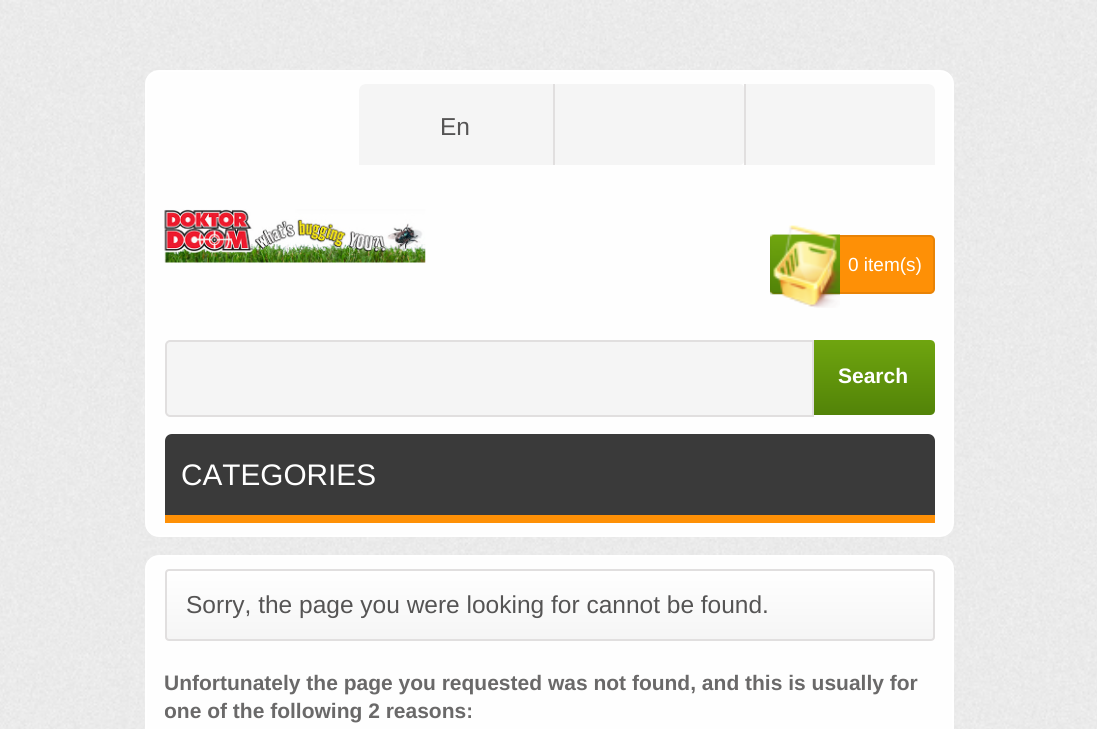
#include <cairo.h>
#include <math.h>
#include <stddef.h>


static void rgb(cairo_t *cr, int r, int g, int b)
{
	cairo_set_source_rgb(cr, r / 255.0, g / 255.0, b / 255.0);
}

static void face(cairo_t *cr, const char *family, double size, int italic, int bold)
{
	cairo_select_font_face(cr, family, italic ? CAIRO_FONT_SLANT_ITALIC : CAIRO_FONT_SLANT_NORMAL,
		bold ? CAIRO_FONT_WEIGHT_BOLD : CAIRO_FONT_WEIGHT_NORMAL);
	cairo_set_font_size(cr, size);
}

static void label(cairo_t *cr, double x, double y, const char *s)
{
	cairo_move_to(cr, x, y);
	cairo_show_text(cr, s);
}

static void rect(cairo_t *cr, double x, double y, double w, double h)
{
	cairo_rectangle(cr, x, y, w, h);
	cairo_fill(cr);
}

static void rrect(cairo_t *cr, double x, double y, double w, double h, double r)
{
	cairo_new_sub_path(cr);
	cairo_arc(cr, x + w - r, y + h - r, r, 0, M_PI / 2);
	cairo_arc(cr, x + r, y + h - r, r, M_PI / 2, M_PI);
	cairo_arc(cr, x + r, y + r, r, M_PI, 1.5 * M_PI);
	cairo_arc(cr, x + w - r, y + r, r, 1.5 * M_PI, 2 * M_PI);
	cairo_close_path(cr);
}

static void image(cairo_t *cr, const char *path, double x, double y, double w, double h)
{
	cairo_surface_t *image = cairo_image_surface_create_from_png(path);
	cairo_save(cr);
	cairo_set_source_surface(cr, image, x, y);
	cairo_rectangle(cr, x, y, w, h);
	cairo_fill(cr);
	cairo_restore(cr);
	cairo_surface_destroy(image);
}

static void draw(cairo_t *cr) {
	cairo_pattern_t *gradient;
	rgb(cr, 255, 255, 255);
	cairo_paint(cr);
	image(cr, "image0.png", 0, 0, 1097, 729);
	rgb(cr, 254, 254, 254);
	rrect(cr, 146, 71, 807, 465, 13);
	cairo_fill_preserve(cr);
	rgb(cr, 255, 255, 255);
	cairo_stroke(cr);
	rgb(cr, 245, 245, 245);
	cairo_new_path(cr);
	cairo_move_to(cr, 366, 84);
	cairo_line_to(cr, 553, 84);
	cairo_line_to(cr, 553, 165);
	cairo_line_to(cr, 359, 165);
	cairo_line_to(cr, 359, 91);
	cairo_curve_to(cr, 359, 87, 362, 84, 366, 84);
	cairo_close_path(cr);
	cairo_fill(cr);
	face(cr, "Liberation Sans", 24.5, 0, 0);
	rgb(cr, 85, 84, 84);
	label(cr, 440, 135, "En");
	rgb(cr, 245, 245, 245);
	rrect(cr, 553, 84, 191, 81, 4);
	cairo_fill(cr);
	rgb(cr, 225, 223, 223);
	rect(cr, 553, 84, 2, 81);
	rgb(cr, 245, 245, 245);
	cairo_new_path(cr);
	cairo_move_to(cr, 744, 84);
	cairo_line_to(cr, 928, 84);
	cairo_curve_to(cr, 932, 84, 935, 87, 935, 91);
	cairo_line_to(cr, 935, 165);
	cairo_line_to(cr, 744, 165);
	cairo_close_path(cr);
	cairo_fill(cr);
	rgb(cr, 225, 223, 223);
	rect(cr, 744, 84, 2, 81);
	image(cr, "image1.png", 164, 209, 262, 54);
	rgb(cr, 254, 144, 6);
	rrect(cr, 771, 236, 163, 57, 4);
	cairo_fill_preserve(cr);
	rgb(cr, 233, 131, 5);
	cairo_stroke(cr);
	image(cr, "image2.png", 770, 225, 70, 83);
	face(cr, "Liberation Sans", 19, 0, 0);
	rgb(cr, 255, 255, 255);
	label(cr, 848, 271, "0 item(s)");
	rgb(cr, 245, 245, 245);
	cairo_new_path(cr);
	cairo_move_to(cr, 170, 341);
	cairo_line_to(cr, 813, 341);
	cairo_line_to(cr, 813, 416);
	cairo_line_to(cr, 170, 416);
	cairo_curve_to(cr, 168, 416, 166, 414, 166, 412);
	cairo_line_to(cr, 166, 345);
	cairo_curve_to(cr, 166, 343, 168, 341, 170, 341);
	cairo_close_path(cr);
	cairo_fill_preserve(cr);
	rgb(cr, 225, 223, 223);
	cairo_stroke(cr);
	gradient = cairo_pattern_create_linear(814, 340, 814, 415);
	cairo_pattern_add_color_stop_rgba(gradient, 0, 0.435, 0.647, 0.059, 1);
	cairo_pattern_add_color_stop_rgba(gradient, 1, 0.322, 0.514, 0.031, 1);
	cairo_set_source(cr, gradient);
	cairo_pattern_destroy(gradient);
	cairo_new_path(cr);
	cairo_move_to(cr, 814, 340);
	cairo_line_to(cr, 930, 340);
	cairo_curve_to(cr, 933, 340, 935, 342, 935, 345);
	cairo_line_to(cr, 935, 410);
	cairo_curve_to(cr, 935, 413, 933, 415, 930, 415);
	cairo_line_to(cr, 814, 415);
	cairo_close_path(cr);
	cairo_fill(cr);
	face(cr, "Liberation Sans", 21, 0, 1);
	rgb(cr, 255, 255, 255);
	label(cr, 838, 383, "Search");
	rgb(cr, 58, 58, 58);
	cairo_new_path(cr);
	cairo_move_to(cr, 172, 434);
	cairo_line_to(cr, 928, 434);
	cairo_curve_to(cr, 932, 434, 935, 437, 935, 441);
	cairo_line_to(cr, 935, 523);
	cairo_line_to(cr, 165, 523);
	cairo_line_to(cr, 165, 441);
	cairo_curve_to(cr, 165, 437, 168, 434, 172, 434);
	cairo_close_path(cr);
	cairo_fill(cr);
	rgb(cr, 254, 144, 6);
	rect(cr, 165, 515, 770, 8);
	face(cr, "Liberation Sans", 29.75, 0, 0);
	rgb(cr, 255, 255, 255);
	label(cr, 181, 485, "CATEGORIES");
	rgb(cr, 254, 254, 254);
	rrect(cr, 146, 556, 807, 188, 13);
	cairo_fill_preserve(cr);
	rgb(cr, 255, 255, 255);
	cairo_stroke(cr);
	cairo_save(cr);
	rrect(cr, 165, 569, 770, 72, 4);
	cairo_clip(cr);
	gradient = cairo_pattern_create_linear(166, 571, 166, 639);
	cairo_pattern_add_color_stop_rgba(gradient, 0, 1, 1, 1, 1);
	cairo_pattern_add_color_stop_rgba(gradient, 1, 0.961, 0.961, 0.961, 1);
	cairo_set_source(cr, gradient);
	cairo_pattern_destroy(gradient);
	rect(cr, 165, 571, 770, 68);
	cairo_restore(cr);
	rrect(cr, 166, 570, 768, 70, 3);
	rgb(cr, 225, 223, 223);
	cairo_stroke(cr);
	face(cr, "Liberation Sans", 24.5, 0, 0);
	rgb(cr, 85, 84, 84);
	label(cr, 186, 613, "Sorry, the page you were looking for cannot be found.");
	cairo_save(cr);
	cairo_rectangle(cr, 165, 569, 770, 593);
	cairo_clip(cr);
	face(cr, "Liberation Sans", 21, 0, 1);
	rgb(cr, 106, 105, 105);
	label(cr, 164, 690, "Unfortunately the page you requested was not found, and this is usually for");
	label(cr, 164, 718, "one of the following 2 reasons:");
	cairo_restore(cr);
}

int main(void) {
	cairo_surface_t *surface = cairo_image_surface_create(CAIRO_FORMAT_RGB24, 1097, 729);
	cairo_t *cr = cairo_create(surface);
	cairo_font_options_t *options = cairo_font_options_create();
	cairo_font_options_set_hint_metrics(options, CAIRO_HINT_METRICS_OFF);
	cairo_font_options_set_hint_style(options, CAIRO_HINT_STYLE_NONE);
	cairo_set_font_options(cr, options);
	cairo_set_miter_limit(cr, 4);
	draw(cr);
	cairo_surface_write_to_png(surface, "render.png");
	cairo_font_options_destroy(options);
	cairo_destroy(cr);
	cairo_surface_destroy(surface);
	return 0;
}
